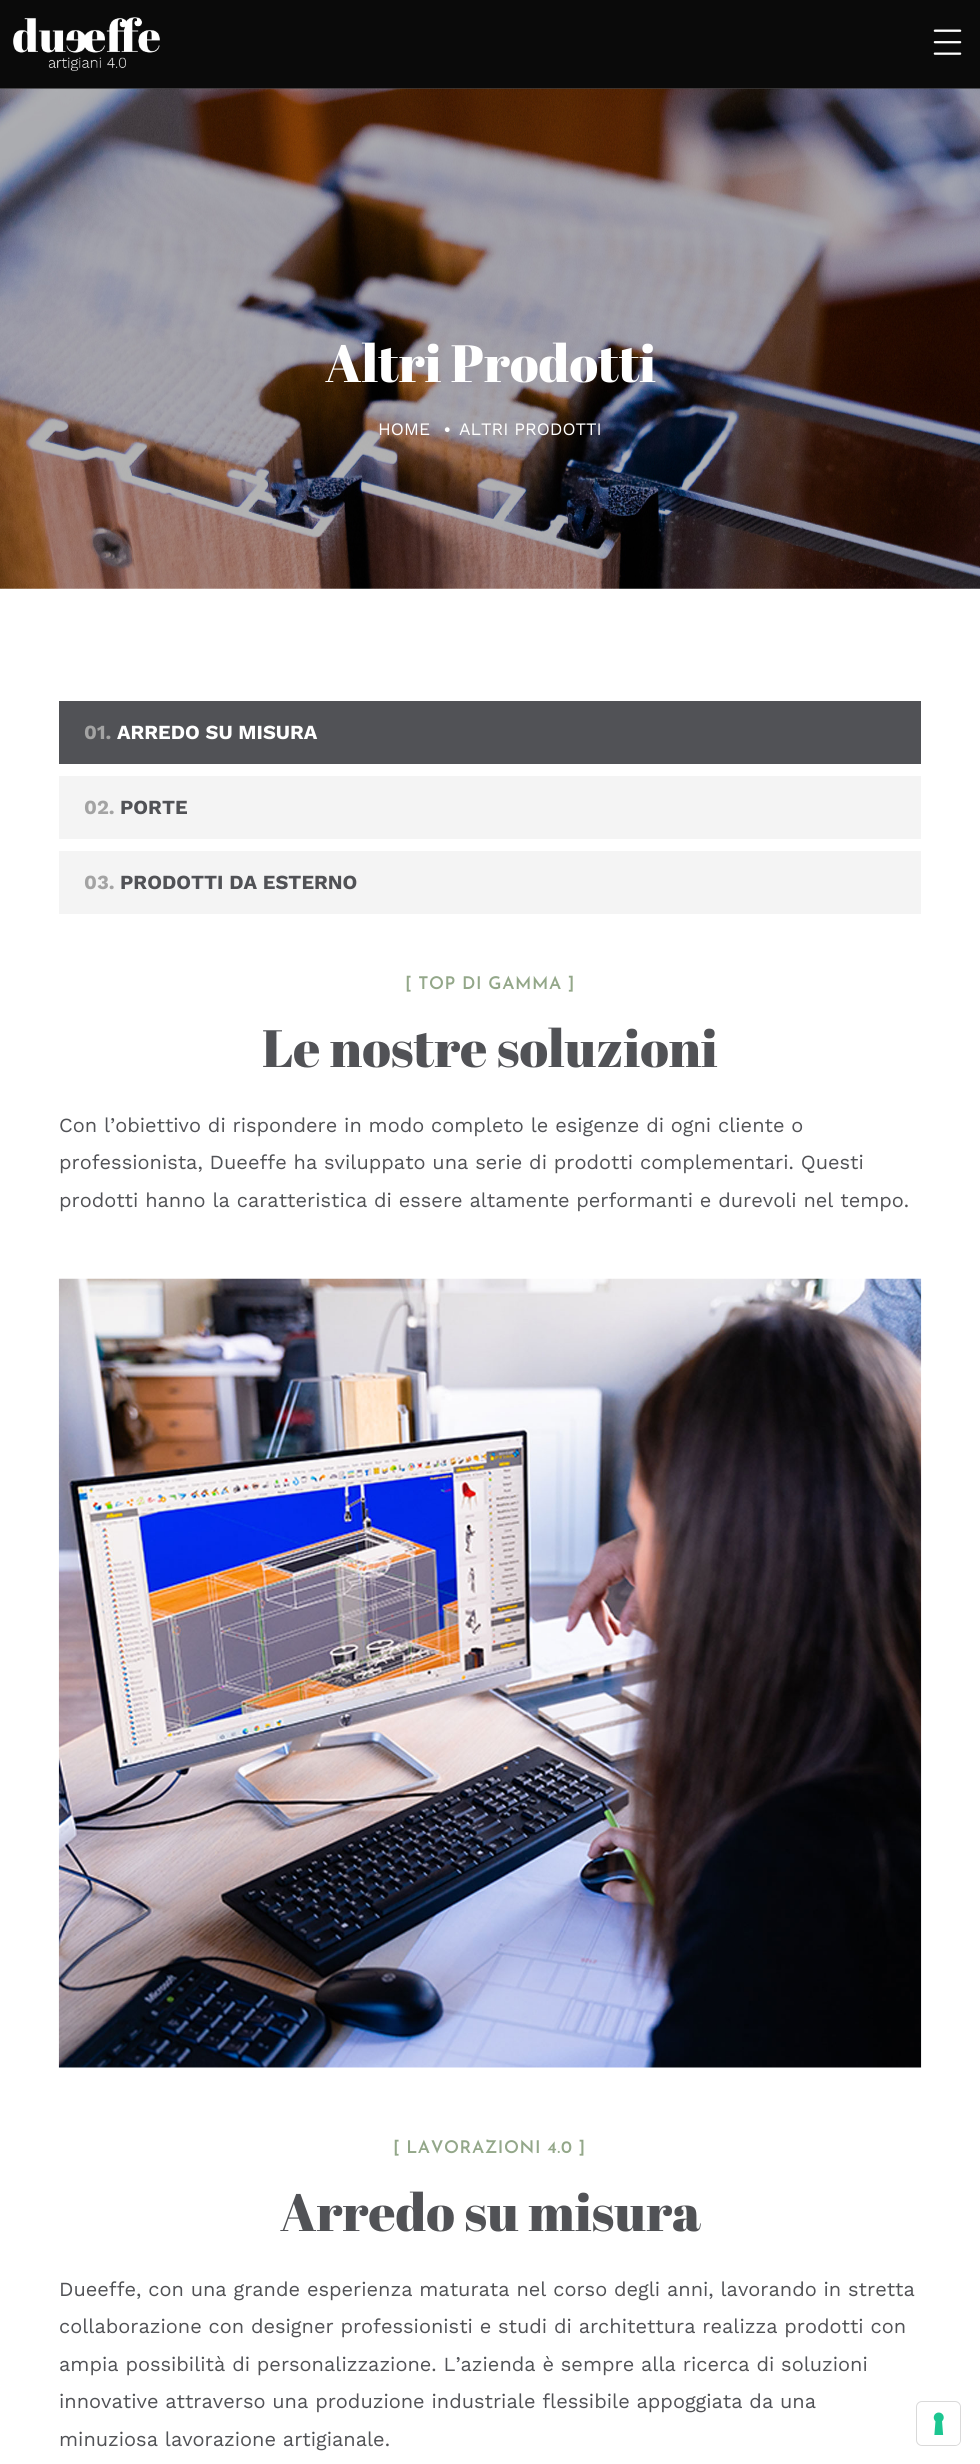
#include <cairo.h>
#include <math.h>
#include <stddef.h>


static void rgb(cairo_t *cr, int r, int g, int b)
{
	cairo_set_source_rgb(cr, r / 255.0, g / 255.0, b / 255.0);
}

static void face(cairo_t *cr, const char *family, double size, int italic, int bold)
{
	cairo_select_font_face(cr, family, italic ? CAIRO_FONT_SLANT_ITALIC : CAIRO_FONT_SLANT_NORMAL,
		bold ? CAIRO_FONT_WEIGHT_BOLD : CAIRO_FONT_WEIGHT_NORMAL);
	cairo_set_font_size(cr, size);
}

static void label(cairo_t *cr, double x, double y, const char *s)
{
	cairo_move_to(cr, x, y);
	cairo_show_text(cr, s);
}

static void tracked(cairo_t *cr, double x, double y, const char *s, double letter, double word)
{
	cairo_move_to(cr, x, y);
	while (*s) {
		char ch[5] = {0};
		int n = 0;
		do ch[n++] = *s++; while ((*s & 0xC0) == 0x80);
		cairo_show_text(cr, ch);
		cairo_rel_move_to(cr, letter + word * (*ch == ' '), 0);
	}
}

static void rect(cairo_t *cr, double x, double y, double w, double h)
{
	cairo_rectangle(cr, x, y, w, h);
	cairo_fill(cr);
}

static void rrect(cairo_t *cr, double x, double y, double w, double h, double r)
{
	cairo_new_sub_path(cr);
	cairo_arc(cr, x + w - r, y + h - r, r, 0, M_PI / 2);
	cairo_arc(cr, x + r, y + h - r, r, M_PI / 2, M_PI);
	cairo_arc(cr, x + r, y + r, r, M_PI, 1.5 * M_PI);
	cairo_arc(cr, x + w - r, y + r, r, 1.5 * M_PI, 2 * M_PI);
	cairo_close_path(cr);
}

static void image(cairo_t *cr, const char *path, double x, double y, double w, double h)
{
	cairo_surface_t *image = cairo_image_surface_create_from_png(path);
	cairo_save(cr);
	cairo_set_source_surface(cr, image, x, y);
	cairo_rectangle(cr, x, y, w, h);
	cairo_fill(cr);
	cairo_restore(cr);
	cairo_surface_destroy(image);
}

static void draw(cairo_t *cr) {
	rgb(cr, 255, 255, 255);
	cairo_paint(cr);
	rgb(cr, 10, 10, 10);
	rect(cr, 0, 0, 980, 88);
	rgb(cr, 59, 59, 59);
	rect(cr, 0, 88, 980, 1);
	image(cr, "image0.png", 13, 17, 147, 54);
	image(cr, "image1.png", 933, 29, 29, 26);
	image(cr, "image2.png", 0, 88, 980, 501);
	face(cr, "Abril Fatface", 52.5, 0, 0);
	rgb(cr, 255, 255, 255);
	label(cr, 325, 382, "Altri Prodotti");
	face(cr, "Work Sans", 17.5, 0, 0);
	label(cr, 378, 435, "HOME");
	face(cr, "Josefin Sans Medium", 17.5, 0, 0);
	tracked(cr, 443, 435, "•", 5, 0);
	face(cr, "Work Sans", 17.5, 0, 0);
	label(cr, 459, 435, "ALTRI PRODOTTI");
	rgb(cr, 81, 82, 86);
	rect(cr, 59, 701, 862, 63);
	face(cr, "Work Sans", 20, 0, 1);
	rgb(cr, 163, 163, 163);
	label(cr, 84, 739, "01.");
	rgb(cr, 255, 255, 255);
	label(cr, 117, 739, "ARREDO SU MISURA");
	rgb(cr, 244, 244, 244);
	rect(cr, 59, 776, 862, 63);
	rgb(cr, 163, 163, 163);
	label(cr, 84, 814, "02.");
	rgb(cr, 81, 82, 86);
	label(cr, 120, 814, "PORTE");
	rgb(cr, 244, 244, 244);
	rect(cr, 59, 851, 862, 63);
	rgb(cr, 163, 163, 163);
	label(cr, 84, 889, "03.");
	rgb(cr, 81, 82, 86);
	label(cr, 120, 889, "PRODOTTI DA ESTERNO");
	face(cr, "Josefin Sans SemiBold", 17.5, 0, 0);
	rgb(cr, 147, 167, 137);
	tracked(cr, 405, 989, "[ TOP DI GAMMA ]", 0.6, 0);
	face(cr, "Abril Fatface", 52.5, 0, 0);
	rgb(cr, 81, 82, 86);
	label(cr, 262, 1067, "Le nostre soluzioni");
	face(cr, "Work Sans", 20, 0, 0);
	label(cr, 59, 1132, "Con l’obiettivo di rispondere in modo completo le esigenze di ogni cliente o");
	label(cr, 59, 1169, "professionista, Dueeffe ha sviluppato una serie di prodotti complementari. Questi");
	label(cr, 59, 1207, "prodotti hanno la caratteristica di essere altamente performanti e durevoli nel tempo.");
	image(cr, "image3.png", 58, 1278, 864, 790);
	face(cr, "Josefin Sans SemiBold", 17.5, 0, 0);
	rgb(cr, 147, 167, 137);
	tracked(cr, 393, 2153, "[ LAVORAZIONI 4.0 ]", 0.6, 0);
	face(cr, "Abril Fatface", 52.5, 0, 0);
	rgb(cr, 81, 82, 86);
	label(cr, 280, 2231, "Arredo su misura");
	face(cr, "Work Sans", 20, 0, 0);
	label(cr, 59, 2296, "Dueeffe, con una grande esperienza maturata nel corso degli anni, lavorando in stretta");
	label(cr, 59, 2333, "collaborazione con designer professionisti e studi di architettura realizza prodotti con");
	label(cr, 59, 2371, "ampia possibilità di personalizzazione. L’azienda è sempre alla ricerca di soluzioni");
	label(cr, 59, 2408, "innovative attraverso una produzione industriale flessibile appoggiata da una");
	label(cr, 59, 2446, "minuziosa lavorazione artigianale.");
	rrect(cr, 916.5, 2401.5, 44, 44, 5.5);
	rgb(cr, 217, 217, 217);
	cairo_set_line_width(cr, 1);
	cairo_stroke(cr);
	rgb(cr, 255, 255, 255);
	rrect(cr, 918, 2403, 42, 42, 5);
	cairo_fill(cr);
	image(cr, "image4.png", 933, 2412, 11, 23);
}

int main(void) {
	cairo_surface_t *surface = cairo_image_surface_create(CAIRO_FORMAT_RGB24, 980, 2464);
	cairo_t *cr = cairo_create(surface);
	cairo_font_options_t *options = cairo_font_options_create();
	cairo_font_options_set_hint_metrics(options, CAIRO_HINT_METRICS_OFF);
	cairo_font_options_set_hint_style(options, CAIRO_HINT_STYLE_NONE);
	cairo_set_font_options(cr, options);
	cairo_set_miter_limit(cr, 4);
	draw(cr);
	cairo_surface_write_to_png(surface, "render.png");
	cairo_font_options_destroy(options);
	cairo_destroy(cr);
	cairo_surface_destroy(surface);
	return 0;
}
